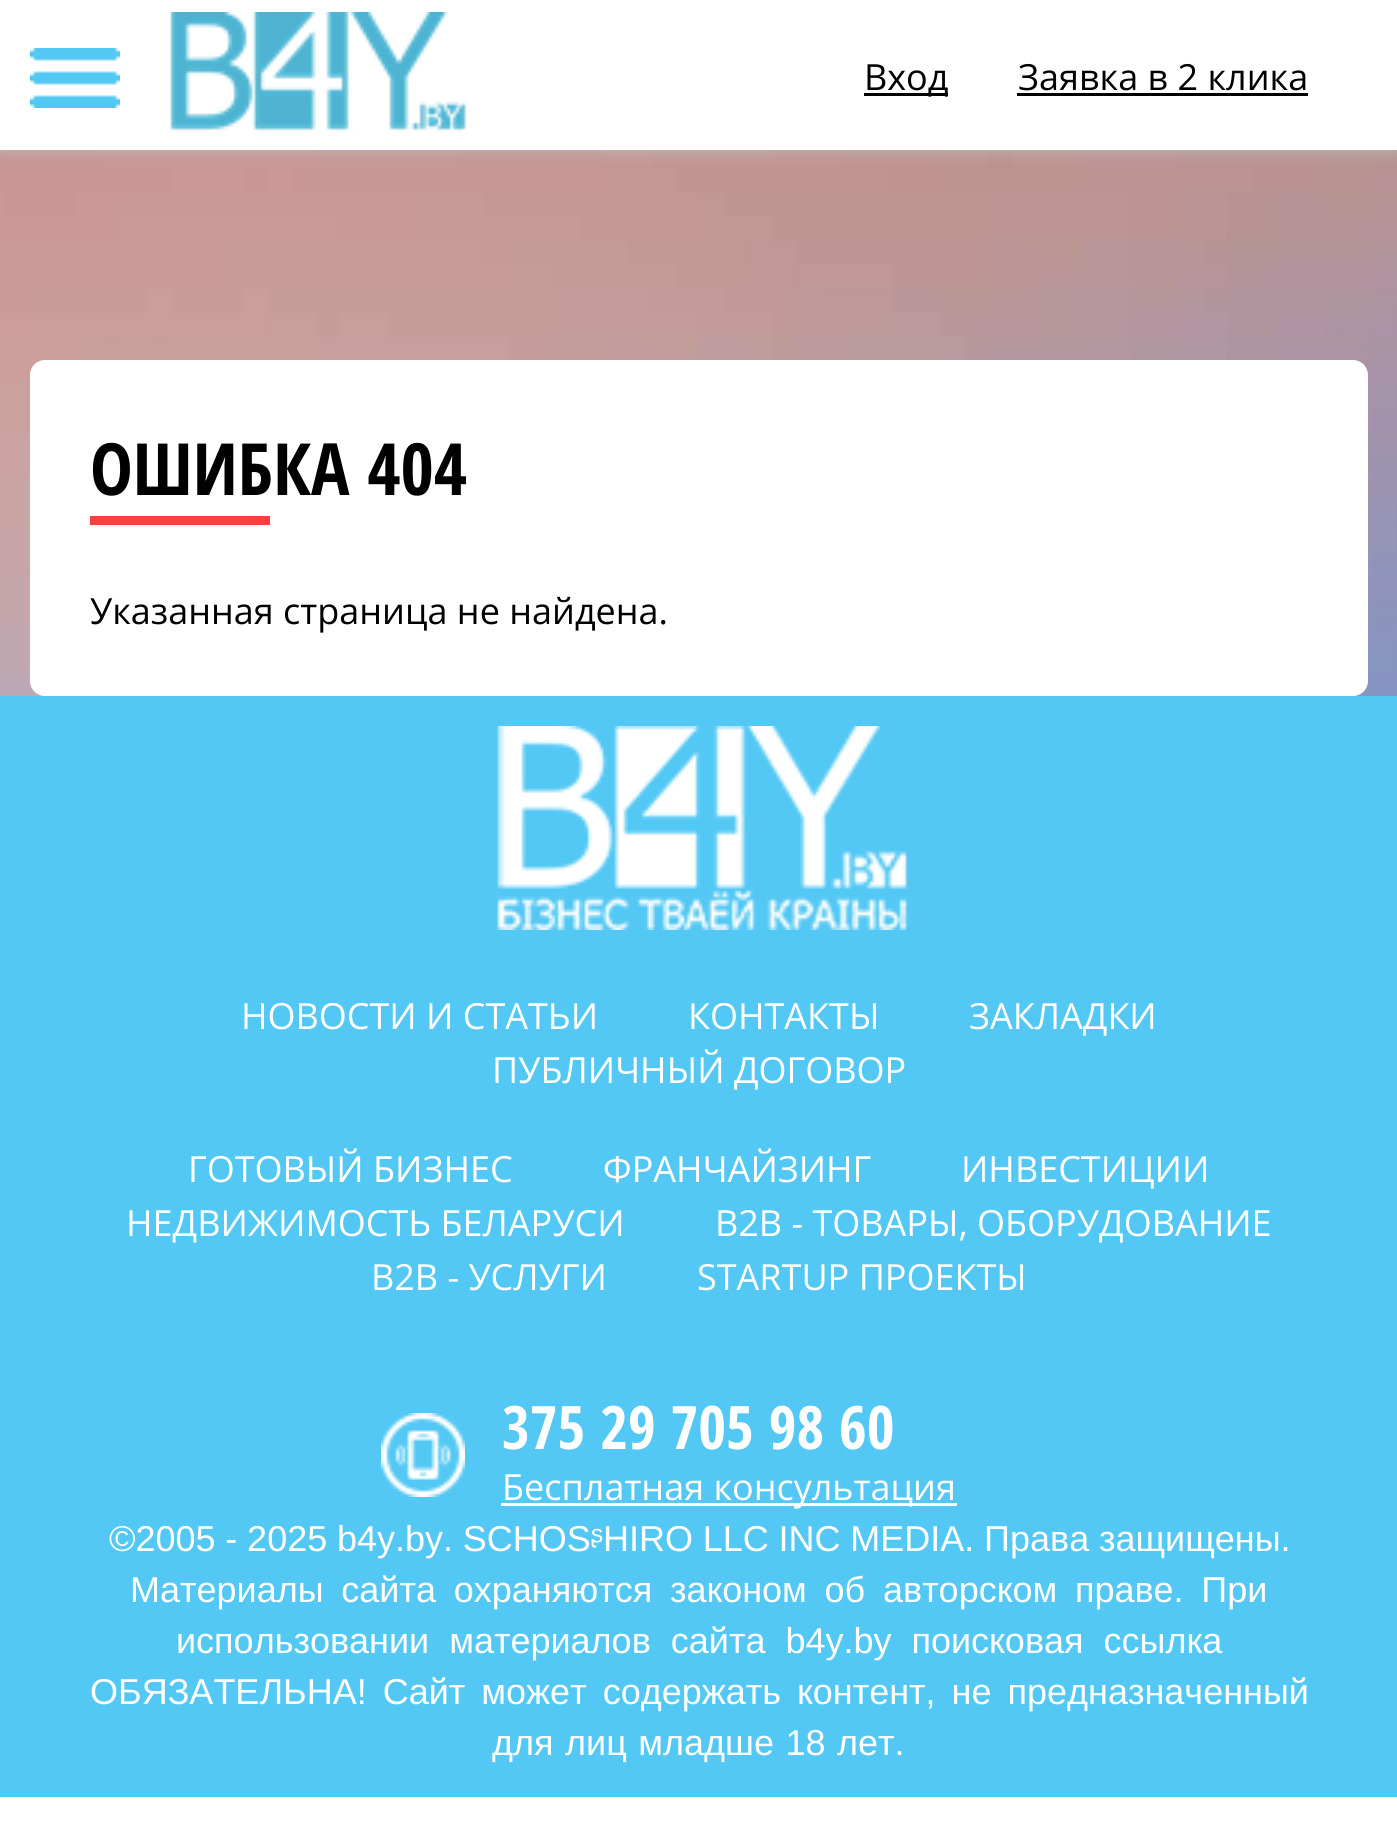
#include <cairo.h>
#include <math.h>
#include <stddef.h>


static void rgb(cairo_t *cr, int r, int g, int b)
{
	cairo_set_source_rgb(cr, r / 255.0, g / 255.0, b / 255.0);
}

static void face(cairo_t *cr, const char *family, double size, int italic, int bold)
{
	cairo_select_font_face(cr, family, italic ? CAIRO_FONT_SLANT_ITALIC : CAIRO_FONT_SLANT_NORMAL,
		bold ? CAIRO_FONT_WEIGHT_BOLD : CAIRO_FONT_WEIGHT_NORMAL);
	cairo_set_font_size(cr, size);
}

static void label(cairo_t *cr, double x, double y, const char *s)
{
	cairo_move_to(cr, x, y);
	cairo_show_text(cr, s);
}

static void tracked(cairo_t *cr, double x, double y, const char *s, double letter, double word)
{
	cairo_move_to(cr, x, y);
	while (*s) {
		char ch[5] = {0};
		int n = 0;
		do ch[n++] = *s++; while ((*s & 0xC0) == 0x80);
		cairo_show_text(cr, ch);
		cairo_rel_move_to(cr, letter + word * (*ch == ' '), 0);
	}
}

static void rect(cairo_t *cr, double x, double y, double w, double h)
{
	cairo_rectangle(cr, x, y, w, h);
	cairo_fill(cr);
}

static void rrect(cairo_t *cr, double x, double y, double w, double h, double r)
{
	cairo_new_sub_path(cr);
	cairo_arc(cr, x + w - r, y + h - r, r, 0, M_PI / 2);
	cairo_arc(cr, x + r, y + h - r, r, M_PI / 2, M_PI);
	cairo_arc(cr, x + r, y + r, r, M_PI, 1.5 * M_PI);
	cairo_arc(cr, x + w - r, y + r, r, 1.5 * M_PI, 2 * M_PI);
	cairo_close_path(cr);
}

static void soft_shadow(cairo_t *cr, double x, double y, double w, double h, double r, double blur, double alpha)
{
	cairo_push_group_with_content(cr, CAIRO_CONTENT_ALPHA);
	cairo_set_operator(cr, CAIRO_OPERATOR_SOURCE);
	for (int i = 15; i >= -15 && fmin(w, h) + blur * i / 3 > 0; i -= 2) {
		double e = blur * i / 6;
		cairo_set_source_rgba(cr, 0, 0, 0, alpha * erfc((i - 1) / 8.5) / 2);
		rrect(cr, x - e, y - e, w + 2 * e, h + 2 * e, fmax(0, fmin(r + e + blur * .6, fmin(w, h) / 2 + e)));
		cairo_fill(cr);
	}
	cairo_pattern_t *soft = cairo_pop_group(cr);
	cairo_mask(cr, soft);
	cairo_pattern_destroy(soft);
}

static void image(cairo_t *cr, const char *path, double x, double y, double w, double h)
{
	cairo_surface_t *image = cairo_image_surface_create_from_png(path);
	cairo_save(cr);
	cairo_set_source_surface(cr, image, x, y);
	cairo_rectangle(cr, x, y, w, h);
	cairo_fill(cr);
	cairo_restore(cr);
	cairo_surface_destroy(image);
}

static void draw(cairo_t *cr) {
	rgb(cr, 255, 255, 255);
	cairo_paint(cr);
	image(cr, "image0.png", 0, 150, 1397, 546);
	rgb(cr, 187, 187, 187);
	soft_shadow(cr, 0, 0, 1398, 150, 0, 7.5, 1);
	rgb(cr, 255, 255, 255);
	rect(cr, 0, 0, 1397, 150);
	image(cr, "image1.png", 30, 48, 90, 60);
	image(cr, "image2.png", 170, 12, 296, 120);
	rgb(cr, 0, 0, 0);
	rect(cr, 864, 93, 84, 3);
	face(cr, "Open Sans", 36, 0, 0);
	label(cr, 864, 90, "Вход");
	label(cr, 1018, 90, "Заявка в 2 клика");
	rect(cr, 1017, 93, 291, 3);
	rgb(cr, 255, 255, 255);
	rrect(cr, 30, 360, 1338, 336, 15);
	cairo_fill(cr);
	rgb(cr, 246, 65, 65);
	rect(cr, 90, 516, 180, 9);
	face(cr, "Open Sans Condensed", 72, 0, 1);
	rgb(cr, 0, 0, 0);
	label(cr, 90, 495, "ОШИБКА 404");
	face(cr, "Open Sans", 36, 0, 0);
	label(cr, 90, 624, "Указанная страница не найдена.");
	rgb(cr, 84, 200, 244);
	rect(cr, 0, 696, 1397, 1101);
	image(cr, "image3.png", 497, 726, 410, 204);
	rgb(cr, 255, 255, 255);
	label(cr, 241, 1029, "НОВОСТИ И СТАТЬИ");
	label(cr, 688, 1029, "КОНТАКТЫ");
	label(cr, 969, 1029, "ЗАКЛАДКИ");
	label(cr, 492, 1083, "ПУБЛИЧНЫЙ ДОГОВОР");
	label(cr, 188, 1182, "ГОТОВЫЙ БИЗНЕС");
	label(cr, 603, 1182, "ФРАНЧАЙЗИНГ");
	label(cr, 961, 1182, "ИНВЕСТИЦИИ");
	label(cr, 126, 1236, "НЕДВИЖИМОСТЬ БЕЛАРУСИ");
	label(cr, 715, 1236, "B2B - ТОВАРЫ, ОБОРУДОВАНИЕ");
	label(cr, 371, 1290, "B2B - УСЛУГИ");
	label(cr, 697, 1290, "STARTUP ПРОЕКТЫ");
	image(cr, "image4.png", 381, 1413, 84, 84);
	face(cr, "Open Sans Condensed", 60, 0, 1);
	label(cr, 502, 1449, "375 29 705 98 60");
	rect(cr, 501, 1503, 456, 3);
	face(cr, "Open Sans", 36, 0, 0);
	label(cr, 502, 1500, "Бесплатная консультация");
	face(cr, "Liberation Sans", 36, 0, 0);
	tracked(cr, 109, 1551, "©2005 - 2025 b4y.by. SCHOSᶳHIRO LLC INC MEDIA. Права защищены.", 0, -0.25);
	tracked(cr, 130, 1602, "Материалы сайта охраняются законом об авторском праве. При", 0, 7.75);
	tracked(cr, 176, 1653, "использовании материалов сайта b4y.by поисковая ссылка", 0, 10);
	tracked(cr, 90, 1704, "ОБЯЗАТЕЛЬНА! Сайт может содержать контент, не предназначенный", 0, 6);
	tracked(cr, 492, 1755, "для лиц младше 18 лет.", 0, 1.5);
}

int main(void) {
	cairo_surface_t *surface = cairo_image_surface_create(CAIRO_FORMAT_RGB24, 1397, 1841);
	cairo_t *cr = cairo_create(surface);
	cairo_font_options_t *options = cairo_font_options_create();
	cairo_font_options_set_hint_metrics(options, CAIRO_HINT_METRICS_OFF);
	cairo_font_options_set_hint_style(options, CAIRO_HINT_STYLE_NONE);
	cairo_set_font_options(cr, options);
	cairo_set_miter_limit(cr, 4);
	draw(cr);
	cairo_surface_write_to_png(surface, "render.png");
	cairo_font_options_destroy(options);
	cairo_destroy(cr);
	cairo_surface_destroy(surface);
	return 0;
}
